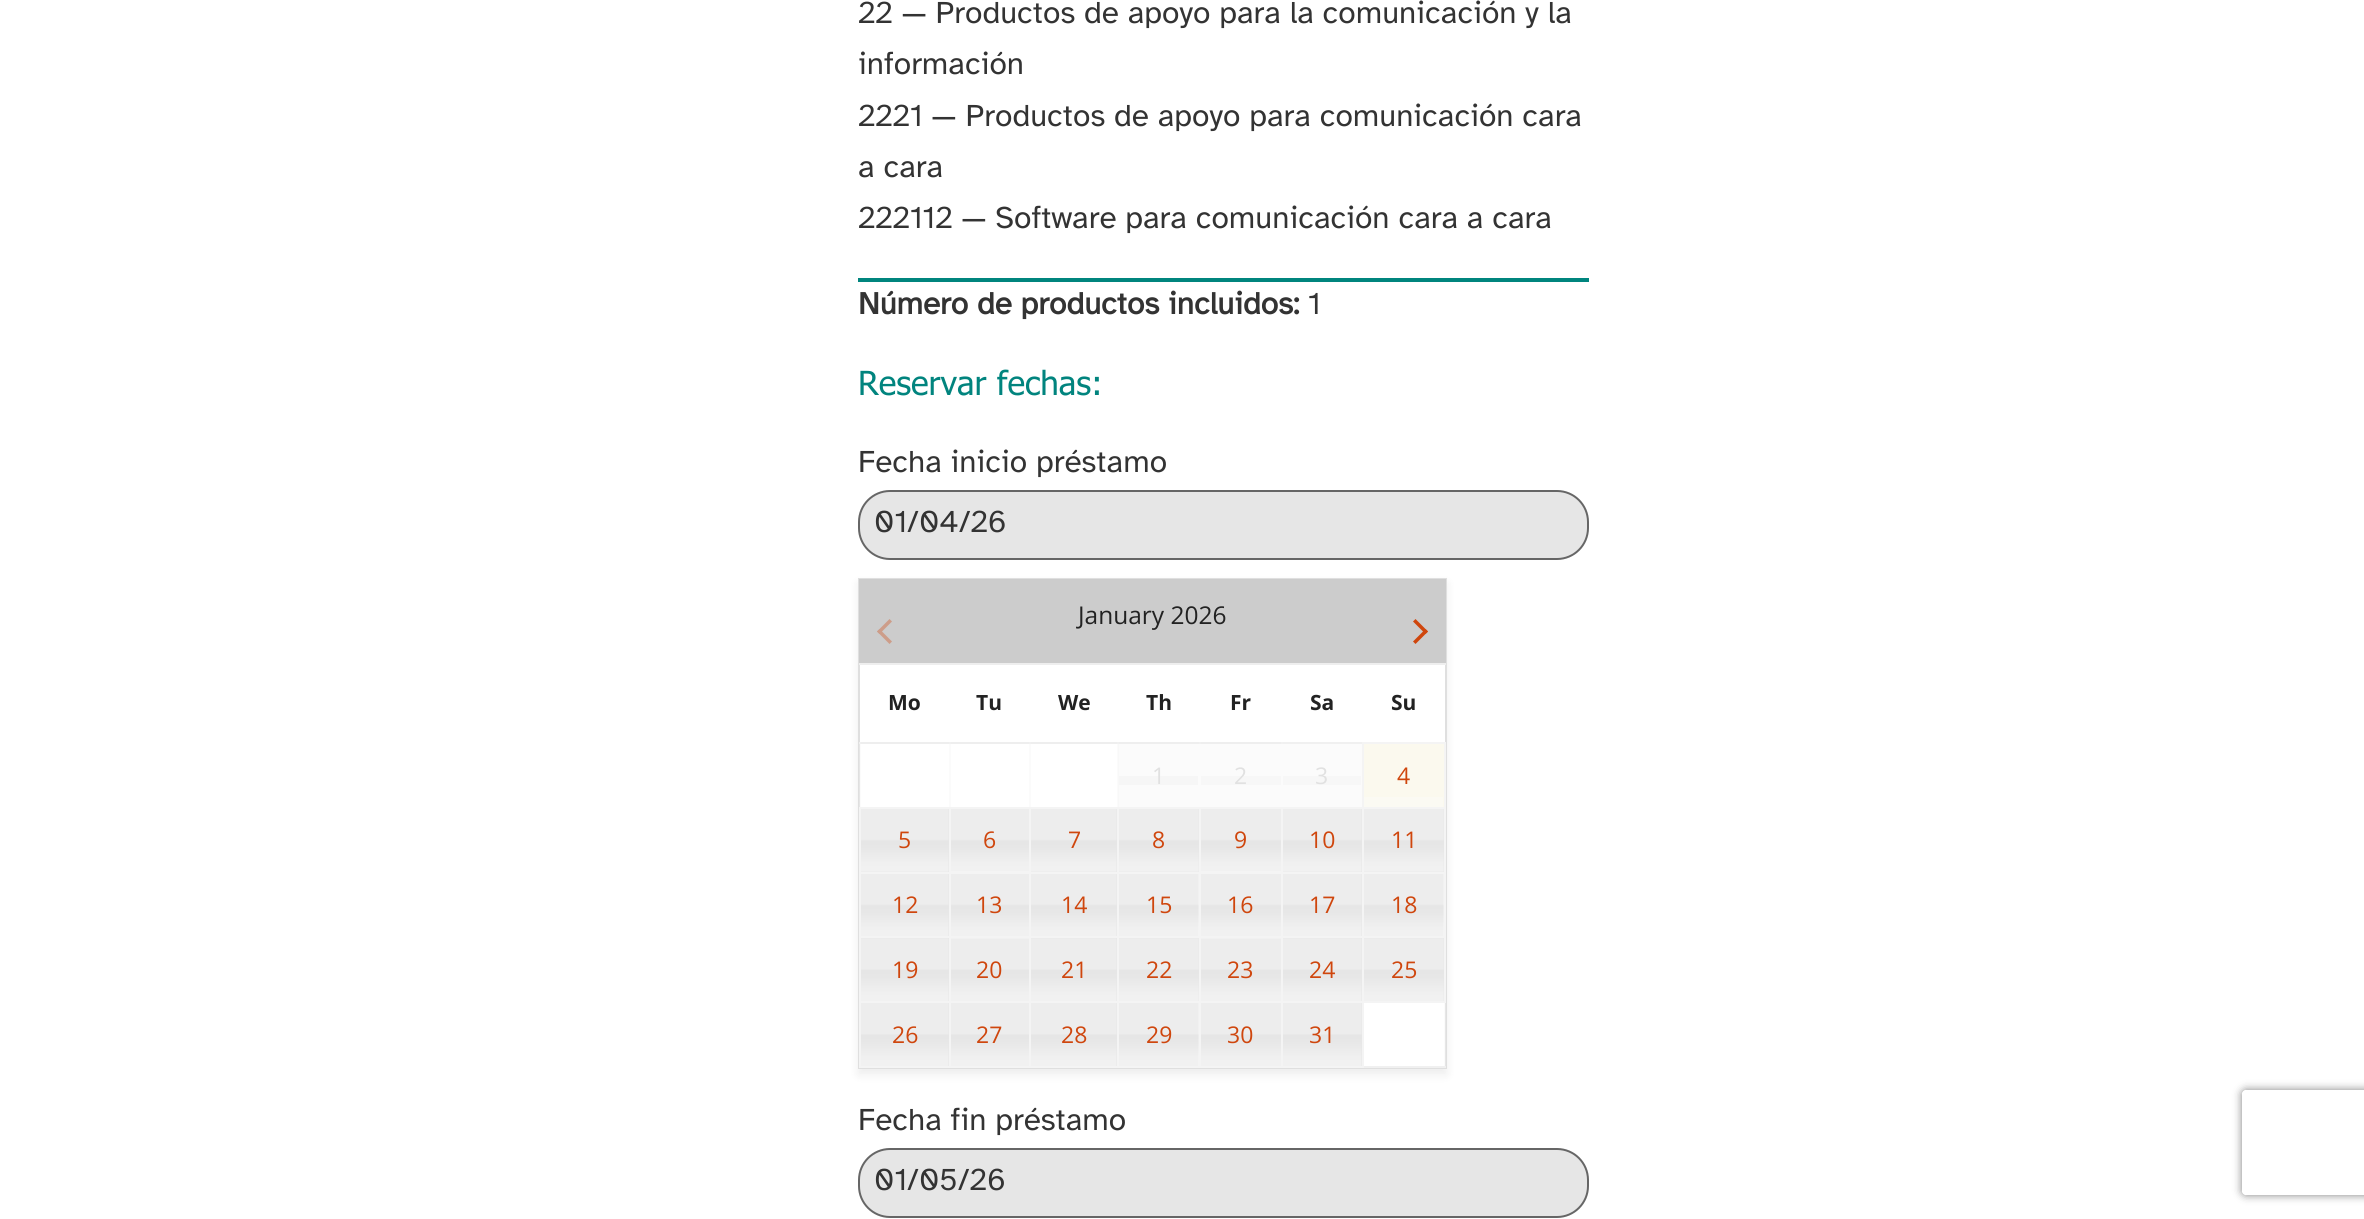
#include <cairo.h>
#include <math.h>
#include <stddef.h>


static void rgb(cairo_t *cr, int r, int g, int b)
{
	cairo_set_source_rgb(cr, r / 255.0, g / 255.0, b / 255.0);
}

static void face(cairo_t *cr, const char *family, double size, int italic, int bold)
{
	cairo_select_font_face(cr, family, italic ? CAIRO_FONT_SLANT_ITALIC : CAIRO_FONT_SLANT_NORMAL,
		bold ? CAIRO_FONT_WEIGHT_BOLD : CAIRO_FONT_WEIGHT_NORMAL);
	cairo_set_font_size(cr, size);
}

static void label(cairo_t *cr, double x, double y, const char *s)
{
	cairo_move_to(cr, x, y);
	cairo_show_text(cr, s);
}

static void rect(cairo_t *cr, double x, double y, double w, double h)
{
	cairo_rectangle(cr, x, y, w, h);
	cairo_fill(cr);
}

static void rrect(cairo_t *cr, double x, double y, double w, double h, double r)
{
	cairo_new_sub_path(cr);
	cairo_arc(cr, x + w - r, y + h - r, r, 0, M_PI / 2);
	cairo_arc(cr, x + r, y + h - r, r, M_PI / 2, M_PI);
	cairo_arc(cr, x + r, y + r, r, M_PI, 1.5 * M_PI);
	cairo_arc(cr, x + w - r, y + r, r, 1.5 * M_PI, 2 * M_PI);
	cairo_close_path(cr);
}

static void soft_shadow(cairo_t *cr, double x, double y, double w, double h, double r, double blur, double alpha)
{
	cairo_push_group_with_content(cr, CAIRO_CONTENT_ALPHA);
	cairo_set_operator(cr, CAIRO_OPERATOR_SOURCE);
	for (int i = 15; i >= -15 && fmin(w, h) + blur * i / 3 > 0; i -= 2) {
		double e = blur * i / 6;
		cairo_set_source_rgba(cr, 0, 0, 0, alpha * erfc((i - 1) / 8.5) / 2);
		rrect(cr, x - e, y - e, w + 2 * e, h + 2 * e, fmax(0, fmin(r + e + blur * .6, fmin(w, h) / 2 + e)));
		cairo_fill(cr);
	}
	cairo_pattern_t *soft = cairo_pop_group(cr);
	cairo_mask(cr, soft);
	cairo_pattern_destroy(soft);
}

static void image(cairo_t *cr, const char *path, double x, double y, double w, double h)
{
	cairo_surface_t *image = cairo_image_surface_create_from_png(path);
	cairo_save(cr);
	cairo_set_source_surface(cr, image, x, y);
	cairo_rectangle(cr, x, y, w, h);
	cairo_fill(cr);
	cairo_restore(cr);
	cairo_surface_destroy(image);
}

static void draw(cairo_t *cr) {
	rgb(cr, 255, 255, 255);
	cairo_paint(cr);
	rgb(cr, 0, 133, 126);
	rect(cr, 858, 278, 731, 4);
	face(cr, "Atkinson Hyperlegible", 31.5, 0, 0);
	rgb(cr, 51, 51, 51);
	label(cr, 858, 23, "22 — Productos de apoyo para la comunicación y la");
	label(cr, 858, 74, "información");
	label(cr, 858, 126, "2221 — Productos de apoyo para comunicación cara");
	label(cr, 858, 177, "a cara");
	label(cr, 858, 228, "222112 — Software para comunicación cara a cara");
	face(cr, "Atkinson Hyperlegible", 31.5, 0, 1);
	label(cr, 858, 314, "Número de productos incluidos:");
	face(cr, "Atkinson Hyperlegible", 31.5, 0, 0);
	label(cr, 1308, 314, "1");
	face(cr, "Tahoma", 33.25, 0, 0);
	rgb(cr, 1, 132, 126);
	label(cr, 858, 395, "Reservar fechas:");
	face(cr, "Atkinson Hyperlegible", 31.5, 0, 0);
	rgb(cr, 51, 51, 51);
	label(cr, 858, 472, "Fecha inicio préstamo");
	rgb(cr, 230, 230, 230);
	rrect(cr, 859, 491, 729, 68, 31);
	cairo_fill_preserve(cr);
	rgb(cr, 102, 102, 102);
	cairo_stroke(cr);
	rgb(cr, 51, 51, 51);
	label(cr, 874, 532, "01/04/26");
	cairo_save(cr);
	cairo_set_fill_rule(cr, CAIRO_FILL_RULE_EVEN_ODD);
	cairo_new_path(cr);
	cairo_move_to(cr, 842, 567);
	cairo_line_to(cr, 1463, 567);
	cairo_line_to(cr, 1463, 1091);
	cairo_line_to(cr, 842, 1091);
	cairo_close_path(cr);
	cairo_move_to(cr, 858, 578);
	cairo_line_to(cr, 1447, 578);
	cairo_line_to(cr, 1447, 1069);
	cairo_line_to(cr, 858, 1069);
	cairo_close_path(cr);
	cairo_clip(cr);
	rgb(cr, 0, 0, 0);
	soft_shadow(cr, 858, 583, 589, 492, 0, 5, 0.07);
	cairo_restore(cr);
	cairo_rectangle(cr, 859, 579, 587, 489);
	rgb(cr, 223, 223, 223);
	cairo_stroke(cr);
	rgb(cr, 204, 204, 204);
	rect(cr, 859, 579, 587, 84);
	rgb(cr, 205, 157, 137);
	cairo_new_path(cr);
	cairo_move_to(cr, 879.5, 629);
	cairo_line_to(cr, 892, 641.5);
	cairo_line_to(cr, 889.5, 644);
	cairo_line_to(cr, 877, 631.5);
	cairo_close_path(cr);
	cairo_fill(cr);
	cairo_new_path(cr);
	cairo_move_to(cr, 889.5, 619);
	cairo_line_to(cr, 892, 621.5);
	cairo_line_to(cr, 879.5, 634);
	cairo_line_to(cr, 877, 631.5);
	cairo_close_path(cr);
	cairo_fill(cr);
	face(cr, "Open Sans", 24.5, 0, 0);
	rgb(cr, 34, 34, 34);
	label(cr, 1078, 624, "January 2026");
	rgb(cr, 207, 70, 13);
	cairo_new_path(cr);
	cairo_move_to(cr, 1415.5, 619);
	cairo_line_to(cr, 1428, 631.5);
	cairo_line_to(cr, 1425.5, 634);
	cairo_line_to(cr, 1413, 621.5);
	cairo_close_path(cr);
	cairo_fill(cr);
	cairo_new_path(cr);
	cairo_move_to(cr, 1425.5, 629);
	cairo_line_to(cr, 1428, 631.5);
	cairo_line_to(cr, 1415.5, 644);
	cairo_line_to(cr, 1413, 641.5);
	cairo_close_path(cr);
	cairo_fill(cr);
	rgb(cr, 238, 238, 238);
	rect(cr, 859, 663, 587, 2);
	face(cr, "Open Sans", 21, 0, 1);
	rgb(cr, 34, 34, 34);
	label(cr, 888, 710, "Mo");
	label(cr, 976, 710, "Tu");
	label(cr, 1058, 710, "We");
	label(cr, 1146, 710, "Th");
	label(cr, 1230, 710, "Fr");
	label(cr, 1310, 710, "Sa");
	label(cr, 1391, 710, "Su");
	rgb(cr, 238, 238, 238);
	rect(cr, 859, 742, 422, 2);
	rgb(cr, 240, 240, 240);
	rect(cr, 1281, 742, 82, 2);
	rgb(cr, 244, 244, 244);
	rect(cr, 1362, 807, 84, 2);
	rect(cr, 1362, 872, 84, 2);
	rect(cr, 1362, 936, 84, 2);
	cairo_set_source_rgba(cr, 0.957, 0.957, 0.957, 0.35);
	rect(cr, 1444, 1001, 2, 67);
	rgb(cr, 244, 244, 244);
	rect(cr, 1444, 936, 2, 67);
	rect(cr, 1281, 1001, 82, 2);
	rgb(cr, 240, 240, 240);
	rect(cr, 1362, 1066, 84, 2);
	rgb(cr, 244, 244, 244);
	rect(cr, 1362, 1001, 2, 67);
	rect(cr, 1362, 1001, 84, 2);
	rect(cr, 1362, 936, 2, 67);
	rect(cr, 1281, 936, 82, 2);
	rect(cr, 1362, 872, 2, 66);
	rect(cr, 1281, 872, 82, 2);
	rect(cr, 1362, 807, 2, 66);
	rect(cr, 1281, 807, 82, 2);
	rect(cr, 1281, 1066, 82, 2);
	rect(cr, 1281, 1001, 2, 67);
	rect(cr, 1199, 1001, 84, 2);
	rect(cr, 1281, 936, 2, 67);
	rect(cr, 1199, 936, 84, 2);
	rect(cr, 1281, 872, 2, 66);
	rect(cr, 1199, 872, 84, 2);
	rect(cr, 1281, 807, 2, 66);
	rect(cr, 1199, 807, 84, 2);
	rect(cr, 1199, 1066, 84, 2);
	rect(cr, 1199, 1001, 2, 67);
	rect(cr, 1117, 1001, 84, 2);
	rect(cr, 1199, 936, 2, 67);
	rect(cr, 1117, 936, 84, 2);
	rect(cr, 1199, 872, 2, 66);
	rect(cr, 1117, 872, 84, 2);
	rect(cr, 1199, 807, 2, 66);
	rect(cr, 1117, 807, 84, 2);
	rect(cr, 1117, 1066, 84, 2);
	rect(cr, 1117, 1001, 2, 67);
	rect(cr, 1029, 1001, 89, 2);
	rect(cr, 1117, 936, 2, 67);
	rect(cr, 1029, 936, 89, 2);
	rect(cr, 1117, 872, 2, 66);
	rect(cr, 1029, 872, 89, 2);
	rect(cr, 1117, 807, 2, 66);
	rect(cr, 1029, 807, 89, 2);
	rect(cr, 1029, 1066, 89, 2);
	rect(cr, 1029, 1001, 2, 67);
	rect(cr, 949, 1001, 82, 2);
	rect(cr, 1029, 936, 2, 67);
	rect(cr, 949, 936, 82, 2);
	rect(cr, 1029, 872, 2, 66);
	rect(cr, 949, 872, 82, 2);
	rect(cr, 1029, 807, 2, 66);
	rect(cr, 949, 807, 82, 2);
	rect(cr, 949, 1066, 82, 2);
	rect(cr, 949, 1001, 2, 67);
	rect(cr, 859, 1001, 91, 2);
	rect(cr, 949, 936, 2, 67);
	rect(cr, 859, 936, 91, 2);
	rect(cr, 949, 872, 2, 66);
	rect(cr, 859, 872, 91, 2);
	rect(cr, 949, 807, 2, 66);
	rect(cr, 859, 807, 91, 2);
	rect(cr, 859, 1066, 91, 2);
	rect(cr, 859, 1001, 2, 67);
	rect(cr, 859, 936, 2, 67);
	rect(cr, 859, 872, 2, 66);
	rect(cr, 859, 807, 2, 66);
	cairo_set_source_rgba(cr, 0.957, 0.957, 0.957, 0.35);
	rect(cr, 859, 742, 2, 67);
	rect(cr, 949, 742, 2, 67);
	rect(cr, 1029, 742, 2, 67);
	rect(cr, 1117, 742, 2, 67);
	cairo_set_source_rgba(cr, 0.902, 0.902, 0.902, 0.17);
	rect(cr, 1118, 744, 81, 63);
	rgb(cr, 246, 246, 246);
	rect(cr, 1119, 776, 79, 9);
	face(cr, "Open Sans", 23, 0, 0);
	rgb(cr, 225, 225, 225);
	label(cr, 1152, 784, "1");
	cairo_set_source_rgba(cr, 0.957, 0.957, 0.957, 0.35);
	rect(cr, 1199, 742, 2, 67);
	rgb(cr, 251, 251, 251);
	rect(cr, 1201, 744, 80, 63);
	rgb(cr, 247, 247, 247);
	rect(cr, 1201, 776, 80, 9);
	rgb(cr, 225, 225, 225);
	label(cr, 1234, 784, "2");
	cairo_set_source_rgba(cr, 0.957, 0.957, 0.957, 0.35);
	rect(cr, 1281, 742, 2, 67);
	rgb(cr, 251, 251, 251);
	rect(cr, 1283, 744, 79, 63);
	rgb(cr, 247, 247, 247);
	rect(cr, 1283, 776, 78, 9);
	rgb(cr, 225, 225, 225);
	label(cr, 1315, 784, "3");
	rgb(cr, 244, 244, 244);
	rect(cr, 1362, 742, 84, 2);
	rect(cr, 1444, 872, 2, 66);
	rect(cr, 1444, 807, 2, 66);
	rect(cr, 1444, 742, 2, 67);
	rect(cr, 1362, 742, 2, 67);
	rgb(cr, 251, 249, 238);
	rect(cr, 1364, 744, 80, 63);
	rgb(cr, 251, 250, 243);
	rect(cr, 1364, 797, 79, 10);
	rgb(cr, 207, 70, 13);
	label(cr, 1397, 784, "4");
	rgb(cr, 230, 230, 230);
	rect(cr, 861, 809, 88, 63);
	image(cr, "image0.png", 861, 809, 88, 63);
	rgb(cr, 207, 70, 13);
	label(cr, 898, 848, "5");
	image(cr, "image1.png", 951, 809, 78, 63);
	label(cr, 983, 848, "6");
	rgb(cr, 230, 230, 230);
	rect(cr, 1031, 809, 86, 63);
	image(cr, "image2.png", 1031, 809, 86, 63);
	rgb(cr, 207, 70, 13);
	label(cr, 1068, 848, "7");
	rgb(cr, 230, 230, 230);
	rect(cr, 1119, 809, 80, 63);
	image(cr, "image3.png", 1119, 809, 80, 63);
	rgb(cr, 207, 70, 13);
	label(cr, 1152, 848, "8");
	image(cr, "image4.png", 1201, 809, 80, 63);
	label(cr, 1234, 848, "9");
	rgb(cr, 230, 230, 230);
	rect(cr, 1283, 809, 79, 63);
	image(cr, "image5.png", 1283, 809, 79, 63);
	rgb(cr, 207, 70, 13);
	label(cr, 1309, 848, "10");
	rgb(cr, 230, 230, 230);
	rect(cr, 1364, 809, 80, 63);
	image(cr, "image3.png", 1364, 809, 80, 63);
	rgb(cr, 207, 70, 13);
	label(cr, 1391, 848, "11");
	rgb(cr, 230, 230, 230);
	rect(cr, 948, 874, 1, 62);
	image(cr, "image6.png", 861, 874, 88, 62);
	rgb(cr, 207, 70, 13);
	label(cr, 892, 913, "12");
	image(cr, "image7.png", 951, 874, 78, 62);
	label(cr, 976, 913, "13");
	rgb(cr, 230, 230, 230);
	rect(cr, 1116, 874, 1, 62);
	image(cr, "image8.png", 1031, 874, 86, 62);
	rgb(cr, 207, 70, 13);
	label(cr, 1061, 913, "14");
	image(cr, "image9.png", 1119, 874, 80, 62);
	label(cr, 1146, 913, "15");
	image(cr, "image10.png", 1201, 874, 80, 62);
	label(cr, 1227, 913, "16");
	rgb(cr, 230, 230, 230);
	rect(cr, 1361, 874, 1, 62);
	image(cr, "image11.png", 1283, 874, 79, 62);
	rgb(cr, 207, 70, 13);
	label(cr, 1309, 913, "17");
	image(cr, "image9.png", 1364, 874, 80, 62);
	label(cr, 1391, 913, "18");
	rgb(cr, 230, 230, 230);
	rect(cr, 861, 938, 88, 63);
	image(cr, "image12.png", 861, 938, 88, 63);
	rgb(cr, 207, 70, 13);
	label(cr, 892, 978, "19");
	image(cr, "image13.png", 951, 938, 78, 63);
	label(cr, 976, 978, "20");
	rgb(cr, 230, 230, 230);
	rect(cr, 1031, 938, 86, 63);
	image(cr, "image14.png", 1031, 938, 86, 63);
	rgb(cr, 207, 70, 13);
	label(cr, 1061, 978, "21");
	rgb(cr, 230, 230, 230);
	rect(cr, 1119, 938, 80, 63);
	image(cr, "image15.png", 1119, 938, 80, 63);
	rgb(cr, 207, 70, 13);
	label(cr, 1146, 978, "22");
	image(cr, "image16.png", 1201, 938, 80, 63);
	label(cr, 1227, 978, "23");
	rgb(cr, 230, 230, 230);
	rect(cr, 1283, 938, 79, 63);
	image(cr, "image17.png", 1283, 938, 79, 63);
	rgb(cr, 207, 70, 13);
	label(cr, 1309, 978, "24");
	rgb(cr, 230, 230, 230);
	rect(cr, 1364, 938, 80, 63);
	image(cr, "image15.png", 1364, 938, 80, 63);
	rgb(cr, 207, 70, 13);
	label(cr, 1391, 978, "25");
	rgb(cr, 230, 230, 230);
	rect(cr, 948, 1003, 1, 63);
	image(cr, "image18.png", 861, 1003, 88, 63);
	rgb(cr, 207, 70, 13);
	label(cr, 892, 1043, "26");
	image(cr, "image19.png", 951, 1003, 78, 63);
	label(cr, 976, 1043, "27");
	rgb(cr, 230, 230, 230);
	rect(cr, 1116, 1003, 1, 63);
	image(cr, "image20.png", 1031, 1003, 86, 63);
	rgb(cr, 207, 70, 13);
	label(cr, 1061, 1043, "28");
	image(cr, "image21.png", 1119, 1003, 80, 63);
	label(cr, 1146, 1043, "29");
	image(cr, "image22.png", 1201, 1003, 80, 63);
	label(cr, 1227, 1043, "30");
	rgb(cr, 230, 230, 230);
	rect(cr, 1361, 1003, 1, 63);
	image(cr, "image23.png", 1283, 1003, 79, 63);
	rgb(cr, 207, 70, 13);
	label(cr, 1309, 1043, "31");
	face(cr, "Atkinson Hyperlegible", 31.5, 0, 0);
	rgb(cr, 51, 51, 51);
	label(cr, 858, 1130, "Fecha fin préstamo");
	rgb(cr, 230, 230, 230);
	rrect(cr, 859, 1149, 729, 68, 31);
	cairo_fill_preserve(cr);
	rgb(cr, 102, 102, 102);
	cairo_stroke(cr);
	rgb(cr, 51, 51, 51);
	label(cr, 874, 1190, "01/05/26");
	cairo_save(cr);
	cairo_set_fill_rule(cr, CAIRO_FILL_RULE_EVEN_ODD);
	cairo_new_path(cr);
	cairo_move_to(cr, 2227, 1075);
	cairo_line_to(cr, 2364, 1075);
	cairo_line_to(cr, 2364, 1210);
	cairo_line_to(cr, 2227, 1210);
	cairo_close_path(cr);
	cairo_move_to(cr, 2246, 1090);
	cairo_line_to(cr, 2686, 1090);
	cairo_curve_to(cr, 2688, 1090, 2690, 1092, 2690, 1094);
	cairo_line_to(cr, 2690, 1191);
	cairo_curve_to(cr, 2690, 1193, 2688, 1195, 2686, 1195);
	cairo_line_to(cr, 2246, 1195);
	cairo_curve_to(cr, 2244, 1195, 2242, 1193, 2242, 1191);
	cairo_line_to(cr, 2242, 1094);
	cairo_curve_to(cr, 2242, 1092, 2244, 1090, 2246, 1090);
	cairo_close_path(cr);
	cairo_clip(cr);
	rgb(cr, 128, 128, 128);
	soft_shadow(cr, 2242, 1090, 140, 105, 4, 4.5, 1);
	cairo_restore(cr);
}

int main(void) {
	cairo_surface_t *surface = cairo_image_surface_create(CAIRO_FORMAT_RGB24, 2364, 1219);
	cairo_t *cr = cairo_create(surface);
	cairo_font_options_t *options = cairo_font_options_create();
	cairo_font_options_set_hint_metrics(options, CAIRO_HINT_METRICS_OFF);
	cairo_font_options_set_hint_style(options, CAIRO_HINT_STYLE_NONE);
	cairo_set_font_options(cr, options);
	cairo_set_miter_limit(cr, 4);
	draw(cr);
	cairo_surface_write_to_png(surface, "render.png");
	cairo_font_options_destroy(options);
	cairo_destroy(cr);
	cairo_surface_destroy(surface);
	return 0;
}
